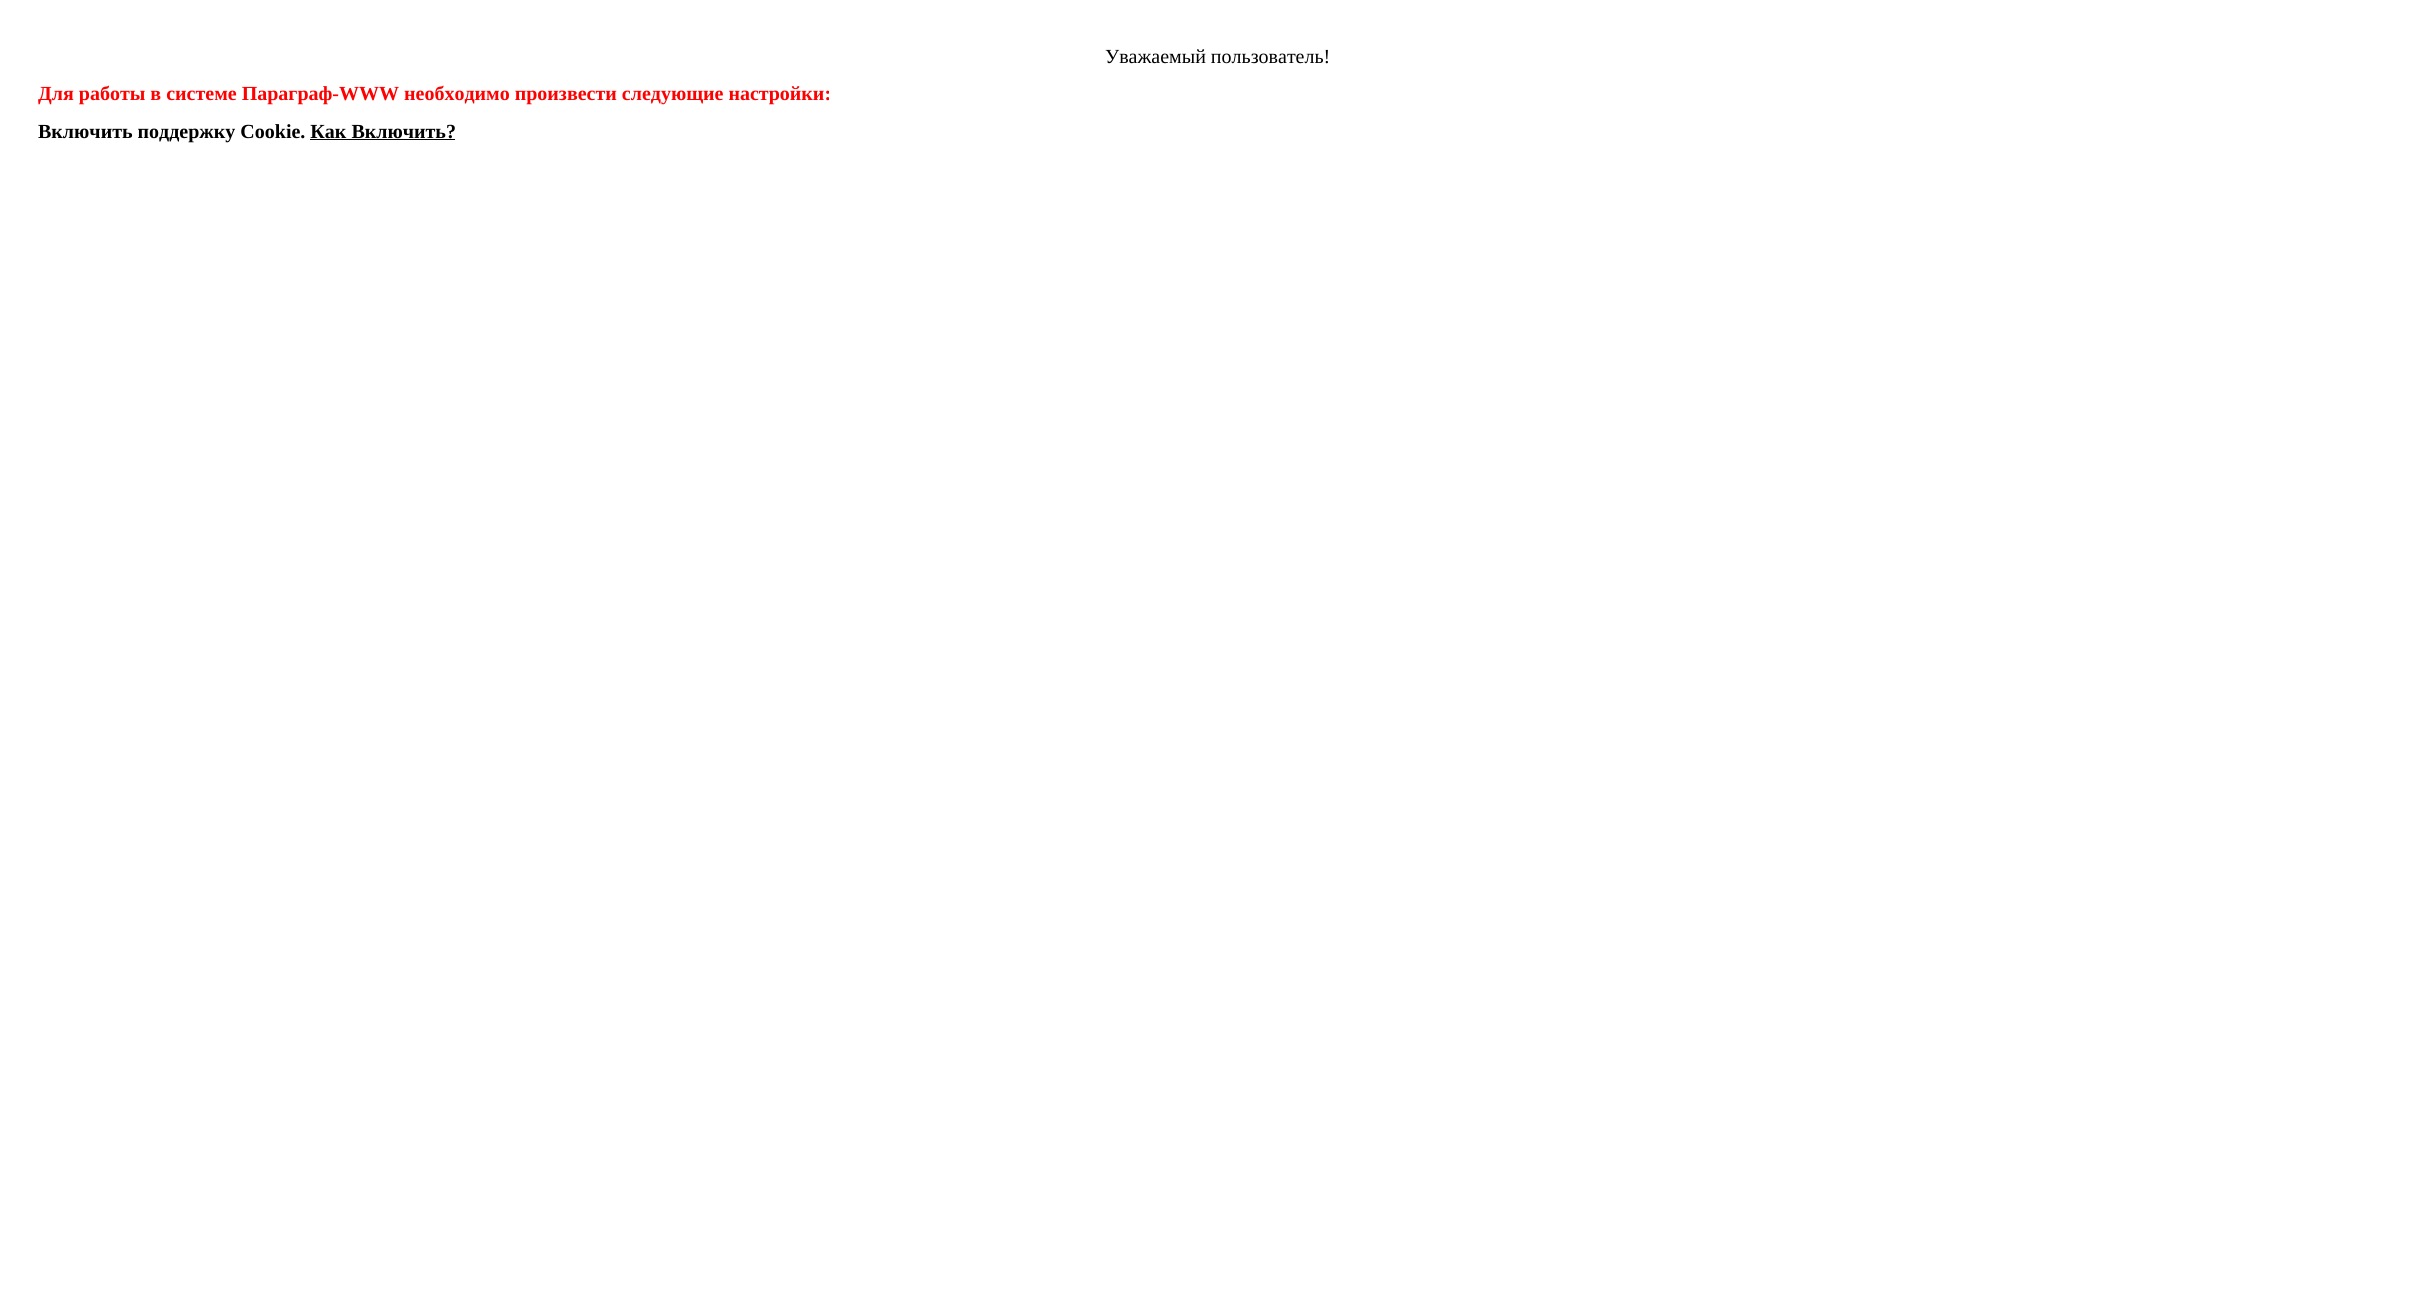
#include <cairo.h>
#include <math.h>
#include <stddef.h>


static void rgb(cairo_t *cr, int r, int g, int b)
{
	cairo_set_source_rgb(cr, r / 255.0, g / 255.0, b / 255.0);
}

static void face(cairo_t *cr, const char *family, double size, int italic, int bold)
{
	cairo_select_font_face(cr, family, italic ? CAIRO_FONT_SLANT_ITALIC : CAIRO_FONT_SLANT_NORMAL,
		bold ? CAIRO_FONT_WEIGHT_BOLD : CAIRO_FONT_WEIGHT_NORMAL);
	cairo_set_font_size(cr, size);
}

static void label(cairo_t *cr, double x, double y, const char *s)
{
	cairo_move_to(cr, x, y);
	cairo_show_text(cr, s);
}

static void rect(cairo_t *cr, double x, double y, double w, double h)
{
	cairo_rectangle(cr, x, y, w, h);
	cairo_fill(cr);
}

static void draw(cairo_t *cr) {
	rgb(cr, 255, 255, 255);
	cairo_paint(cr);
	face(cr, "Liberation Serif", 20, 0, 0);
	rgb(cr, 0, 0, 0);
	label(cr, 1105, 63, "Уважаемый пользователь!");
	face(cr, "Liberation Serif", 20, 0, 1);
	rgb(cr, 255, 0, 0);
	label(cr, 38, 100, "Для работы в системе Параграф-WWW необходимо произвести следующие настройки:");
	rgb(cr, 0, 0, 0);
	label(cr, 38, 138, "Включить поддержку Cookie. Как Включить?");
	rect(cr, 310, 139, 145, 1);
}

int main(void) {
	cairo_surface_t *surface = cairo_image_surface_create(CAIRO_FORMAT_RGB24, 2434, 1304);
	cairo_t *cr = cairo_create(surface);
	cairo_font_options_t *options = cairo_font_options_create();
	cairo_font_options_set_hint_metrics(options, CAIRO_HINT_METRICS_OFF);
	cairo_font_options_set_hint_style(options, CAIRO_HINT_STYLE_NONE);
	cairo_set_font_options(cr, options);
	cairo_set_miter_limit(cr, 4);
	draw(cr);
	cairo_surface_write_to_png(surface, "render.png");
	cairo_font_options_destroy(options);
	cairo_destroy(cr);
	cairo_surface_destroy(surface);
	return 0;
}
